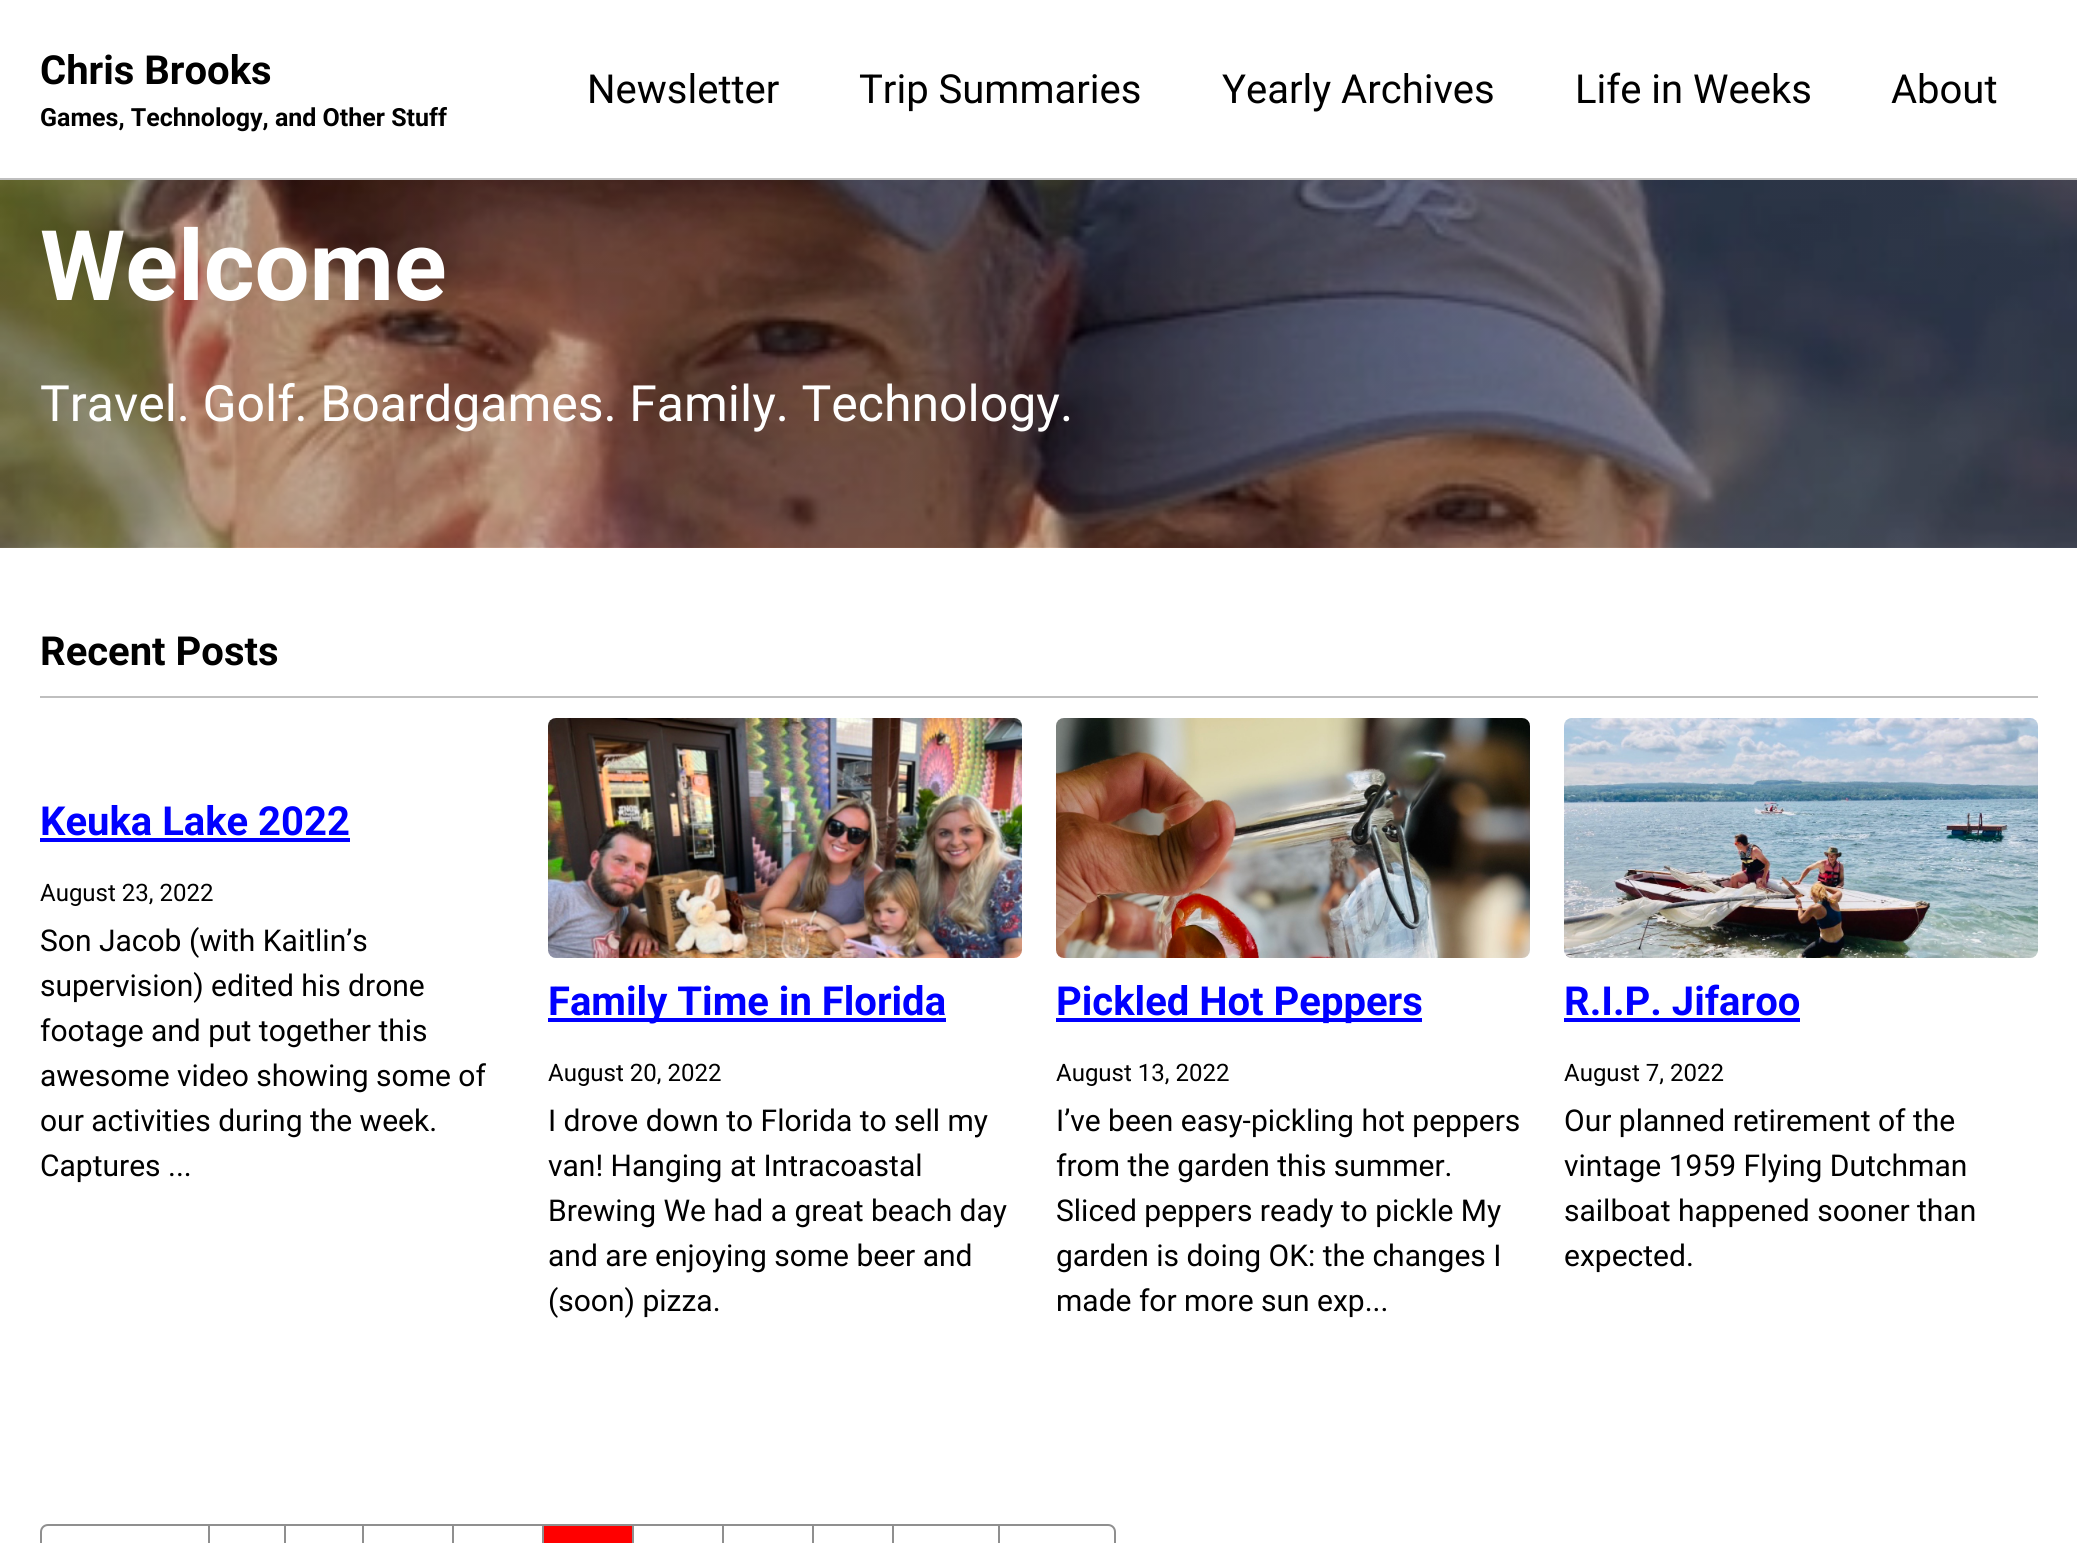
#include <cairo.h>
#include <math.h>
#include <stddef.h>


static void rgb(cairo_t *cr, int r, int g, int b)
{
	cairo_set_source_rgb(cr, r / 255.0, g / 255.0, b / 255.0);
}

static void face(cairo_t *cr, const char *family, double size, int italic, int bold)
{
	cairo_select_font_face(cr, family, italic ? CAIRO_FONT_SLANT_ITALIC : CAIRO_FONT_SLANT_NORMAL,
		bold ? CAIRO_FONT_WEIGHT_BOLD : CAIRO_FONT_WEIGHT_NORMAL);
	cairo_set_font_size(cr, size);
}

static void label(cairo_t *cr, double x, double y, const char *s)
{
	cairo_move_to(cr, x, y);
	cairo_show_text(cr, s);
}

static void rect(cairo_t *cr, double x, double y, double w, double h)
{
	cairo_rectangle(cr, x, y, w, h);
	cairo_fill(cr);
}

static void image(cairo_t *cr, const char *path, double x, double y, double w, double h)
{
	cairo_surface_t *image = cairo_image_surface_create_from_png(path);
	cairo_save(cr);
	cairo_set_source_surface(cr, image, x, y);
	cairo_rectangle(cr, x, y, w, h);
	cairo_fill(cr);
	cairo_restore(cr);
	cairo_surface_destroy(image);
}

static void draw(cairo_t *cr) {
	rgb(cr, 255, 255, 255);
	cairo_paint(cr);
	rgb(cr, 191, 191, 191);
	rect(cr, 0, 178, 2077, 2);
	face(cr, "Roboto", 40, 0, 1);
	rgb(cr, 0, 0, 0);
	label(cr, 40, 84, "Chris Brooks");
	face(cr, "Roboto", 25, 0, 1);
	label(cr, 40, 126, "Games, Technology, and Other Stuff");
	face(cr, "Roboto", 40, 0, 0);
	label(cr, 587, 103, "Newsletter");
	label(cr, 859, 103, "Trip Summaries");
	label(cr, 1222, 103, "Yearly Archives");
	label(cr, 1575, 103, "Life in Weeks");
	label(cr, 1891, 103, "About");
	image(cr, "image0.png", 0, 180, 2077, 368);
	face(cr, "Roboto", 97.5, 0, 1);
	rgb(cr, 255, 255, 255);
	label(cr, 40, 300, "Welcome");
	face(cr, "Roboto", 50, 0, 0);
	label(cr, 40, 421, "Travel. Golf. Boardgames. Family. Technology.");
	rgb(cr, 191, 191, 191);
	rect(cr, 40, 696, 1998, 2);
	face(cr, "Roboto", 40, 0, 1);
	rgb(cr, 0, 0, 0);
	label(cr, 40, 665, "Recent Posts");
	rgb(cr, 0, 0, 255);
	label(cr, 40, 835, "Keuka Lake 2022");
	rect(cr, 40, 838, 310, 4);
	face(cr, "Roboto", 24, 0, 0);
	rgb(cr, 0, 0, 0);
	label(cr, 40, 901, "August 23, 2022");
	face(cr, "Roboto", 30, 0, 0);
	label(cr, 40, 951, "Son Jacob (with Kaitlin’s");
	label(cr, 40, 996, "supervision) edited his drone");
	label(cr, 40, 1041, "footage and put together this");
	label(cr, 40, 1086, "awesome video showing some of");
	label(cr, 40, 1131, "our activities during the week.");
	label(cr, 40, 1176, "Captures ...");
	image(cr, "image1.png", 548, 718, 474, 240);
	rgb(cr, 0, 0, 255);
	rect(cr, 548, 1018, 398, 4);
	face(cr, "Roboto", 40, 0, 1);
	label(cr, 548, 1015, "Family Time in Florida");
	face(cr, "Roboto", 24, 0, 0);
	rgb(cr, 0, 0, 0);
	label(cr, 548, 1081, "August 20, 2022");
	face(cr, "Roboto", 30, 0, 0);
	label(cr, 548, 1131, "I drove down to Florida to sell my");
	label(cr, 548, 1176, "van! Hanging at Intracoastal");
	label(cr, 548, 1221, "Brewing We had a great beach day");
	label(cr, 548, 1266, "and are enjoying some beer and");
	label(cr, 548, 1311, "(soon) pizza.");
	image(cr, "image2.png", 1056, 718, 474, 240);
	rgb(cr, 0, 0, 255);
	rect(cr, 1056, 1018, 366, 4);
	face(cr, "Roboto", 40, 0, 1);
	label(cr, 1056, 1015, "Pickled Hot Peppers");
	face(cr, "Roboto", 24, 0, 0);
	rgb(cr, 0, 0, 0);
	label(cr, 1056, 1081, "August 13, 2022");
	face(cr, "Roboto", 30, 0, 0);
	label(cr, 1056, 1131, "I’ve been easy-pickling hot peppers");
	label(cr, 1056, 1176, "from the garden this summer.");
	label(cr, 1056, 1221, "Sliced peppers ready to pickle My");
	label(cr, 1056, 1266, "garden is doing OK: the changes I");
	label(cr, 1056, 1311, "made for more sun exp...");
	image(cr, "image3.png", 1564, 718, 474, 240);
	face(cr, "Roboto", 40, 0, 1);
	rgb(cr, 0, 0, 255);
	label(cr, 1564, 1015, "R.I.P. Jifaroo");
	rect(cr, 1564, 1018, 236, 4);
	face(cr, "Roboto", 24, 0, 0);
	rgb(cr, 0, 0, 0);
	label(cr, 1564, 1081, "August 7, 2022");
	face(cr, "Roboto", 30, 0, 0);
	label(cr, 1564, 1131, "Our planned retirement of the");
	label(cr, 1564, 1176, "vintage 1959 Flying Dutchman");
	label(cr, 1564, 1221, "sailboat happened sooner than");
	label(cr, 1564, 1266, "expected.");
	cairo_new_path(cr);
	cairo_move_to(cr, 48, 1525);
	cairo_line_to(cr, 209, 1525);
	cairo_line_to(cr, 209, 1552);
	cairo_line_to(cr, 48, 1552);
	cairo_curve_to(cr, 44, 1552, 41, 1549, 41, 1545);
	cairo_line_to(cr, 41, 1532);
	cairo_curve_to(cr, 41, 1528, 44, 1525, 48, 1525);
	cairo_close_path(cr);
	rgb(cr, 143, 143, 143);
	cairo_stroke(cr);
	cairo_rectangle(cr, 209, 1525, 76, 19);
	cairo_stroke(cr);
	cairo_rectangle(cr, 285, 1525, 78, 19);
	cairo_stroke(cr);
	cairo_rectangle(cr, 363, 1525, 90, 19);
	cairo_stroke(cr);
	cairo_rectangle(cr, 453, 1525, 90, 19);
	cairo_stroke(cr);
	rgb(cr, 255, 0, 0);
	cairo_rectangle(cr, 543, 1525, 90, 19);
	cairo_fill_preserve(cr);
	rgb(cr, 143, 143, 143);
	cairo_stroke(cr);
	cairo_rectangle(cr, 633, 1525, 90, 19);
	cairo_stroke(cr);
	cairo_rectangle(cr, 723, 1525, 90, 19);
	cairo_stroke(cr);
	cairo_rectangle(cr, 813, 1525, 80, 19);
	cairo_stroke(cr);
	cairo_rectangle(cr, 893, 1525, 106, 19);
	cairo_stroke(cr);
	cairo_new_path(cr);
	cairo_move_to(cr, 999, 1525);
	cairo_line_to(cr, 1108, 1525);
	cairo_curve_to(cr, 1112, 1525, 1115, 1528, 1115, 1532);
	cairo_line_to(cr, 1115, 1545);
	cairo_curve_to(cr, 1115, 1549, 1112, 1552, 1108, 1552);
	cairo_line_to(cr, 999, 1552);
	cairo_close_path(cr);
	cairo_stroke(cr);
}

int main(void) {
	cairo_surface_t *surface = cairo_image_surface_create(CAIRO_FORMAT_RGB24, 2077, 1543);
	cairo_t *cr = cairo_create(surface);
	cairo_font_options_t *options = cairo_font_options_create();
	cairo_font_options_set_hint_metrics(options, CAIRO_HINT_METRICS_OFF);
	cairo_font_options_set_hint_style(options, CAIRO_HINT_STYLE_NONE);
	cairo_set_font_options(cr, options);
	cairo_set_miter_limit(cr, 4);
	draw(cr);
	cairo_surface_write_to_png(surface, "render.png");
	cairo_font_options_destroy(options);
	cairo_destroy(cr);
	cairo_surface_destroy(surface);
	return 0;
}
